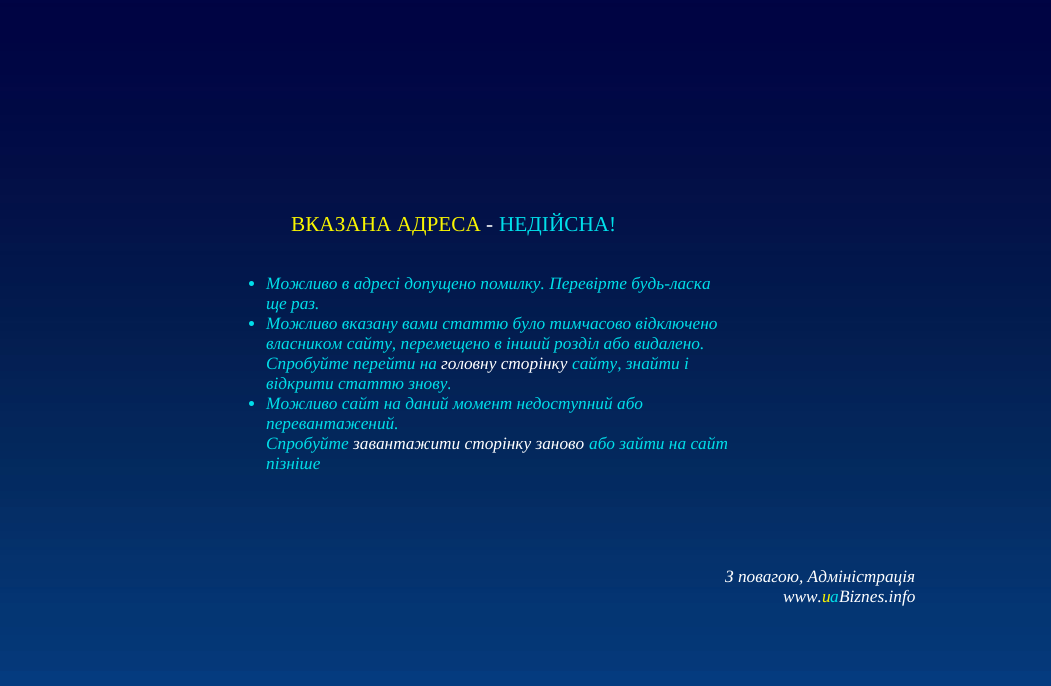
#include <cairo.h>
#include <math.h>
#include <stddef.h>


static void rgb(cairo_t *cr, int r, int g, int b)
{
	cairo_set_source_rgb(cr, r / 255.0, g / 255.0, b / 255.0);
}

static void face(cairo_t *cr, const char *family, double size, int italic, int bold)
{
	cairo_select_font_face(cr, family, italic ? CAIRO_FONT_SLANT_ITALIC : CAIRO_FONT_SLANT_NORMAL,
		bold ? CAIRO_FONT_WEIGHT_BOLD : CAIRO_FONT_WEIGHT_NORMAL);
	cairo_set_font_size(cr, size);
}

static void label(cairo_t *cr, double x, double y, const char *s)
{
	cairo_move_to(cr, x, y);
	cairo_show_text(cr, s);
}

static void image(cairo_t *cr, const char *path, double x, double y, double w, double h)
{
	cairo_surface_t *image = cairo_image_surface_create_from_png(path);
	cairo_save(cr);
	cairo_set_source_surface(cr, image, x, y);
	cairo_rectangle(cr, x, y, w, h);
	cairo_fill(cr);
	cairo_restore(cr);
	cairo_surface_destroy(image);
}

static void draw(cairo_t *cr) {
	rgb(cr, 4, 59, 127);
	cairo_paint(cr);
	image(cr, "image0.png", 0, 0, 1051, 671);
	face(cr, "Liberation Serif", 21.25, 0, 0);
	rgb(cr, 249, 245, 0);
	label(cr, 291, 231, "ВКАЗАНА АДРЕСА");
	rgb(cr, 255, 255, 255);
	label(cr, 486, 231, "-");
	rgb(cr, 0, 223, 234);
	label(cr, 499, 231, "НЕДІЙСНА!");
	cairo_new_path(cr);
	cairo_arc(cr, 251.5, 283.5, 2.5, 0, 2 * M_PI);
	cairo_fill(cr);
	face(cr, "Liberation Serif", 17.3, 1, 0);
	label(cr, 266, 289, "Можливо в адресі допущено помилку. Перевірте будь-ласка");
	label(cr, 266, 309, "ще раз.");
	cairo_new_path(cr);
	cairo_arc(cr, 251.5, 323.5, 2.5, 0, 2 * M_PI);
	cairo_fill(cr);
	label(cr, 266, 329, "Можливо вказану вами статтю було тимчасово відключено");
	label(cr, 266, 349, "власником сайту, перемещено в інший розділ або видалено.");
	label(cr, 266, 369, "Спробуйте перейти на");
	rgb(cr, 255, 255, 255);
	label(cr, 441, 369, "головну сторінку");
	rgb(cr, 0, 223, 234);
	label(cr, 572, 369, "сайту, знайти і");
	label(cr, 266, 389, "відкрити статтю знову.");
	cairo_new_path(cr);
	cairo_arc(cr, 251.5, 403.5, 2.5, 0, 2 * M_PI);
	cairo_fill(cr);
	label(cr, 266, 409, "Можливо сайт на даний момент недоступний або");
	label(cr, 266, 429, "перевантажений.");
	label(cr, 266, 449, "Спробуйте");
	rgb(cr, 255, 255, 255);
	label(cr, 353, 449, "завантажити сторінку заново");
	rgb(cr, 0, 223, 234);
	label(cr, 589, 449, "або зайти на сайт");
	label(cr, 266, 469, "пізніше");
	rgb(cr, 255, 255, 255);
	label(cr, 725, 582, "З повагою, Адміністрація");
	label(cr, 783, 602, "www.");
	rgb(cr, 249, 245, 0);
	label(cr, 822, 602, "u");
	rgb(cr, 0, 223, 234);
	label(cr, 830, 602, "a");
	rgb(cr, 255, 255, 255);
	label(cr, 839, 602, "Biznes.info");
}

int main(void) {
	cairo_surface_t *surface = cairo_image_surface_create(CAIRO_FORMAT_RGB24, 1051, 686);
	cairo_t *cr = cairo_create(surface);
	cairo_font_options_t *options = cairo_font_options_create();
	cairo_font_options_set_hint_metrics(options, CAIRO_HINT_METRICS_OFF);
	cairo_font_options_set_hint_style(options, CAIRO_HINT_STYLE_NONE);
	cairo_set_font_options(cr, options);
	cairo_set_miter_limit(cr, 4);
	draw(cr);
	cairo_surface_write_to_png(surface, "render.png");
	cairo_font_options_destroy(options);
	cairo_destroy(cr);
	cairo_surface_destroy(surface);
	return 0;
}
